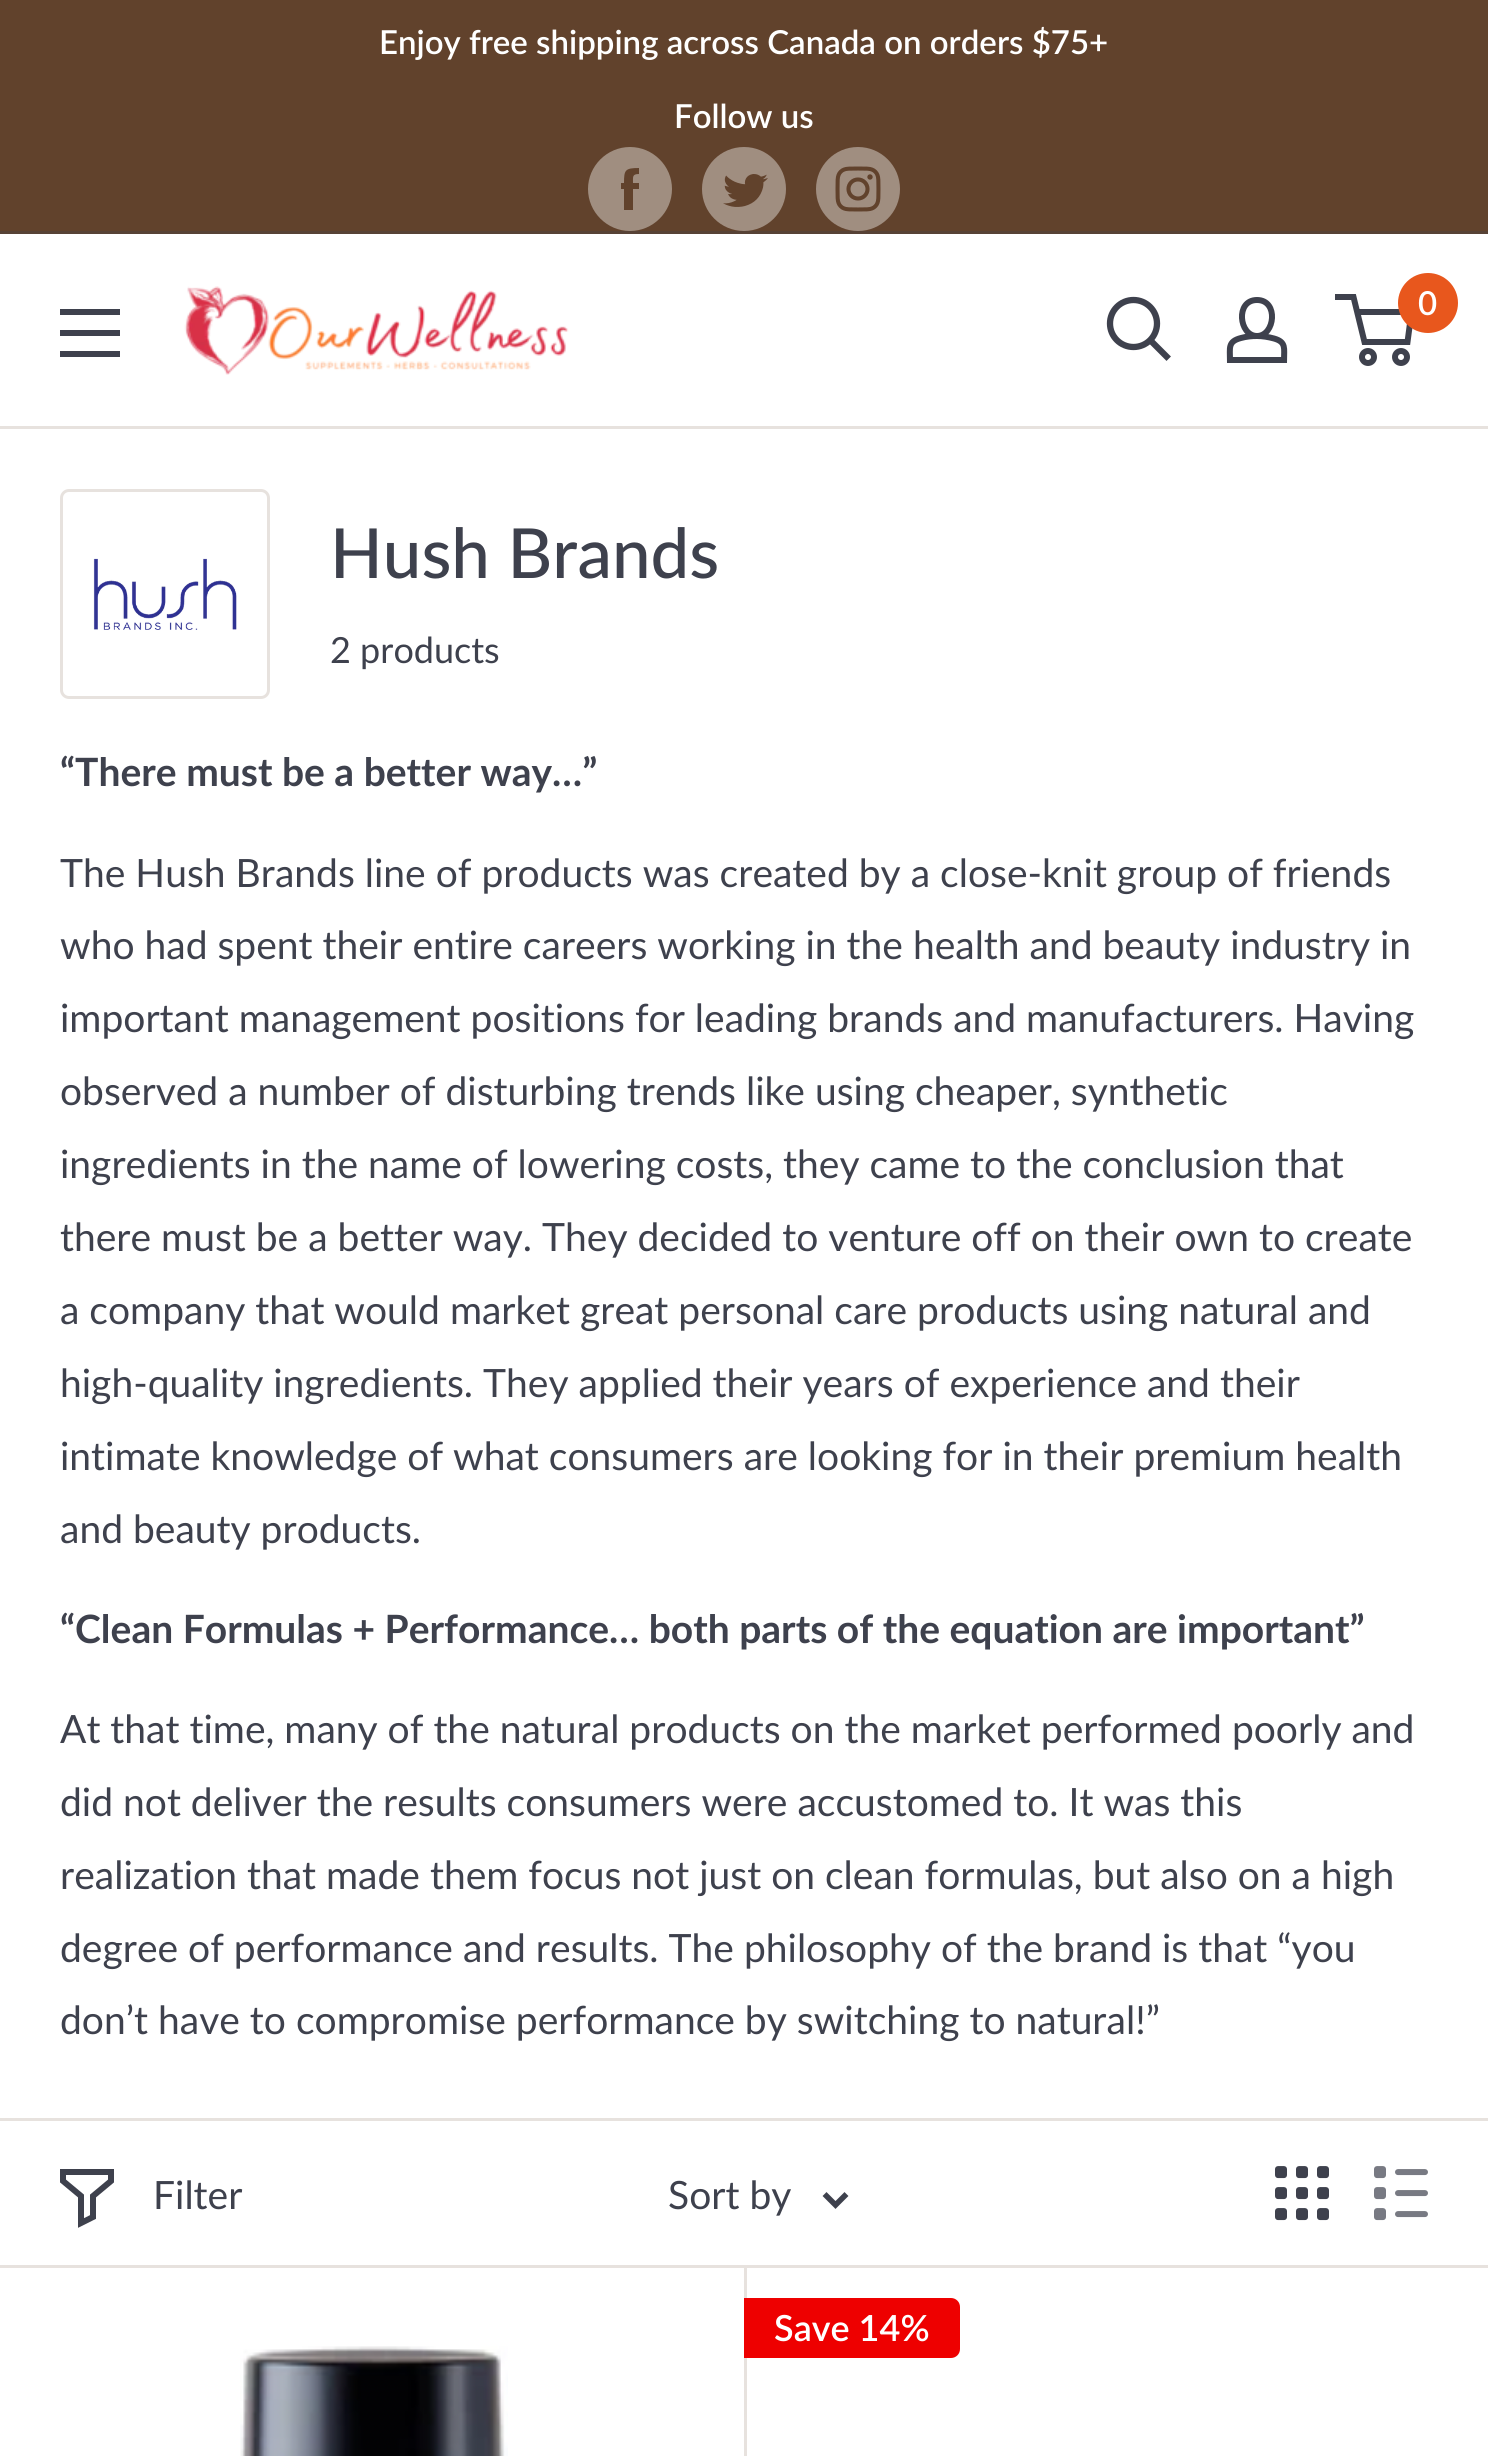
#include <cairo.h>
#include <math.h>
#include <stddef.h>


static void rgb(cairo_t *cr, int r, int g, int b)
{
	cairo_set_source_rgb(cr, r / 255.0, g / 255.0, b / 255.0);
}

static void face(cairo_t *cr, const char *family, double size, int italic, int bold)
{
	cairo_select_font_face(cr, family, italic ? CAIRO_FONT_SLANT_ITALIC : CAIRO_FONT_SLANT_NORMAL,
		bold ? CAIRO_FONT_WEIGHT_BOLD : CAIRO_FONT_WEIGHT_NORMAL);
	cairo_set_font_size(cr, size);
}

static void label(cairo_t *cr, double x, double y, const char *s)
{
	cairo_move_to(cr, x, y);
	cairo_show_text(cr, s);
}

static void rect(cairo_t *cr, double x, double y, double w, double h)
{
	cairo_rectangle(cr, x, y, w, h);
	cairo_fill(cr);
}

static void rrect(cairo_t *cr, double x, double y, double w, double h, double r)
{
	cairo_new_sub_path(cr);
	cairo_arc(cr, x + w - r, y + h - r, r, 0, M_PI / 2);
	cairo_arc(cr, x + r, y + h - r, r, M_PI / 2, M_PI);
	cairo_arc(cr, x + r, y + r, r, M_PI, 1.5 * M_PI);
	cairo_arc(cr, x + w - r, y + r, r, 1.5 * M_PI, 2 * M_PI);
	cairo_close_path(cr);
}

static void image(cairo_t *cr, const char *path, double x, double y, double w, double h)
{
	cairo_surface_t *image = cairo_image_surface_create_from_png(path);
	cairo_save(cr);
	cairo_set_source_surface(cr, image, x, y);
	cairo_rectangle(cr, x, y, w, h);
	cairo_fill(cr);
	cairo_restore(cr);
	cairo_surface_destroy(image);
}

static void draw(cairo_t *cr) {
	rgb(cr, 97, 66, 44);
	cairo_paint(cr);
	rgb(cr, 87, 66, 54);
	rect(cr, 0, 231, 1488, 3);
	face(cr, "Lato SemiBold", 33, 0, 0);
	rgb(cr, 255, 255, 255);
	label(cr, 379, 54, "Enjoy free shipping across Canada on orders $75+");
	label(cr, 674, 128, "Follow us");
	rgb(cr, 160, 142, 128);
	cairo_set_fill_rule(cr, CAIRO_FILL_RULE_EVEN_ODD);
	cairo_new_path(cr);
	cairo_move_to(cr, 630, 231);
	cairo_curve_to(cr, 607, 231, 588, 212, 588, 189);
	cairo_curve_to(cr, 588, 166, 607, 147, 630, 147);
	cairo_curve_to(cr, 653, 147, 672, 166, 672, 189);
	cairo_curve_to(cr, 672, 212, 653, 231, 630, 231);
	cairo_close_path(cr);
	cairo_move_to(cr, 639, 183);
	cairo_line_to(cr, 633, 183);
	cairo_curve_to(cr, 633, 177, 632, 174, 639, 174);
	cairo_line_to(cr, 639, 168);
	cairo_curve_to(cr, 625, 168, 624, 170, 624, 183);
	cairo_line_to(cr, 621, 183);
	cairo_line_to(cr, 621, 189);
	cairo_line_to(cr, 624, 189);
	cairo_line_to(cr, 624, 210);
	cairo_line_to(cr, 633, 210);
	cairo_line_to(cr, 633, 189);
	cairo_line_to(cr, 639, 189);
	cairo_close_path(cr);
	cairo_fill(cr);
	image(cr, "image0.png", 702, 147, 84, 84);
	image(cr, "image1.png", 816, 147, 84, 84);
	rgb(cr, 255, 255, 255);
	rect(cr, 0, 234, 1488, 192);
	image(cr, "image2.png", 184, 286, 385, 89);
	cairo_new_path(cr);
	cairo_move_to(cr, 1166.5, 356.5);
	cairo_line_to(cr, 1151, 341);
	rgb(cr, 62, 65, 77);
	cairo_set_line_width(cr, 6.3);
	cairo_set_line_cap(cr, CAIRO_LINE_CAP_SQUARE);
	cairo_stroke(cr);
	cairo_arc(cr, 1133.5, 323.5, 23.5, 0, 2 * M_PI);
	cairo_set_line_cap(cr, CAIRO_LINE_CAP_BUTT);
	cairo_stroke(cr);
	cairo_new_path(cr);
	cairo_move_to(cr, 1257, 336);
	cairo_curve_to(cr, 1262.5, 336, 1268.5, 337, 1274, 338.5);
	cairo_curve_to(cr, 1286.5, 342, 1284, 348.5, 1284, 360);
	cairo_line_to(cr, 1230, 360);
	cairo_curve_to(cr, 1230, 348, 1227.5, 341.5, 1241, 338);
	cairo_curve_to(cr, 1246.5, 336.5, 1251.5, 336, 1257, 336);
	cairo_close_path(cr);
	cairo_move_to(cr, 1257, 336);
	cairo_curve_to(cr, 1239, 336, 1235, 300, 1257, 300);
	cairo_curve_to(cr, 1279, 300, 1275, 336, 1257, 336);
	cairo_close_path(cr);
	cairo_set_line_width(cr, 6);
	cairo_stroke(cr);
	cairo_arc(cr, 1368, 357, 6, 0, 2 * M_PI);
	cairo_stroke(cr);
	cairo_arc(cr, 1401, 357, 6, 0, 2 * M_PI);
	cairo_stroke(cr);
	cairo_new_path(cr);
	cairo_move_to(cr, 1357, 312);
	cairo_line_to(cr, 1411.5, 312);
	cairo_line_to(cr, 1407.5, 342);
	cairo_line_to(cr, 1364.5, 342);
	cairo_line_to(cr, 1353.5, 297);
	cairo_line_to(cr, 1335, 297);
	cairo_stroke(cr);
	rgb(cr, 232, 87, 29);
	cairo_arc(cr, 1428, 303, 30, 0, 2 * M_PI);
	cairo_fill(cr);
	rgb(cr, 255, 255, 255);
	label(cr, 1418, 315, "0");
	rgb(cr, 62, 65, 77);
	cairo_new_path(cr);
	cairo_move_to(cr, 60, 351);
	cairo_line_to(cr, 120, 351);
	cairo_line_to(cr, 120, 357);
	cairo_line_to(cr, 60, 357);
	cairo_close_path(cr);
	cairo_move_to(cr, 60, 309);
	cairo_line_to(cr, 120, 309);
	cairo_line_to(cr, 120, 315);
	cairo_line_to(cr, 60, 315);
	cairo_close_path(cr);
	cairo_move_to(cr, 60, 330);
	cairo_line_to(cr, 120, 330);
	cairo_line_to(cr, 120, 336);
	cairo_line_to(cr, 60, 336);
	cairo_close_path(cr);
	cairo_fill(cr);
	rgb(cr, 255, 255, 255);
	rect(cr, 0, 429, 1488, 2027);
	rgb(cr, 231, 226, 222);
	rect(cr, 0, 426, 1488, 3);
	rrect(cr, 61.5, 490.5, 207, 207, 7.5);
	cairo_set_line_width(cr, 3);
	cairo_stroke(cr);
	image(cr, "image3.png", 93, 558, 144, 72);
	face(cr, "Lato Medium", 69, 0, 0);
	rgb(cr, 62, 65, 77);
	label(cr, 330, 578, "Hush Brands");
	face(cr, "Lato", 36, 0, 0);
	label(cr, 330, 663, "2 products");
	face(cr, "Lato", 39, 0, 1);
	label(cr, 60, 786, "“There must be a better way…”");
	face(cr, "Lato", 39, 0, 0);
	label(cr, 60, 887, "The Hush Brands line of products was created by a close-knit group of friends");
	label(cr, 60, 959, "who had spent their entire careers working in the health and beauty industry in");
	label(cr, 60, 1032, "important management positions for leading brands and manufacturers. Having");
	label(cr, 60, 1105, "observed a number of disturbing trends like using cheaper, synthetic");
	label(cr, 60, 1178, "ingredients in the name of lowering costs, they came to the conclusion that");
	label(cr, 60, 1251, "there must be a better way. They decided to venture off on their own to create");
	label(cr, 60, 1324, "a company that would market great personal care products using natural and");
	label(cr, 60, 1397, "high-quality ingredients. They applied their years of experience and their");
	label(cr, 60, 1470, "intimate knowledge of what consumers are looking for in their premium health");
	label(cr, 60, 1543, "and beauty products.");
	face(cr, "Lato", 39, 0, 1);
	label(cr, 60, 1643, "“Clean Formulas + Performance… both parts of the equation are important”");
	face(cr, "Lato", 39, 0, 0);
	label(cr, 60, 1743, "At that time, many of the natural products on the market performed poorly and");
	label(cr, 60, 1816, "did not deliver the results consumers were accustomed to. It was this");
	label(cr, 60, 1889, "realization that made them focus not just on clean formulas, but also on a high");
	label(cr, 60, 1962, "degree of performance and results. The philosophy of the brand is that “you");
	label(cr, 60, 2034, "don’t have to compromise performance by switching to natural!”");
	rgb(cr, 231, 226, 222);
	rect(cr, 0, 2118, 1488, 3);
	rect(cr, 744, 2265, 3, 191);
	rect(cr, 0, 2265, 1488, 3);
	cairo_new_path(cr);
	cairo_move_to(cr, 111, 2181);
	cairo_line_to(cr, 93, 2196);
	cairo_line_to(cr, 93, 2217);
	cairo_line_to(cr, 81, 2223);
	cairo_line_to(cr, 81, 2196);
	cairo_line_to(cr, 63, 2181);
	cairo_line_to(cr, 63, 2172);
	cairo_line_to(cr, 111, 2172);
	cairo_close_path(cr);
	rgb(cr, 62, 65, 77);
	cairo_set_line_width(cr, 6);
	cairo_set_line_cap(cr, CAIRO_LINE_CAP_SQUARE);
	cairo_stroke(cr);
	label(cr, 153, 2209, "Filter");
	label(cr, 668, 2209, "Sort by");
	cairo_new_path(cr);
	cairo_move_to(cr, 844.5, 2196);
	cairo_line_to(cr, 835.5, 2205);
	cairo_line_to(cr, 826.5, 2196);
	cairo_set_line_width(cr, 5.6);
	cairo_stroke(cr);
	image(cr, "image4.png", 1275, 2166, 54, 55);
	image(cr, "image5.png", 1374, 2166, 54, 55);
	image(cr, "image6.png", 240, 2346, 268, 110);
	rgb(cr, 238, 0, 0);
	cairo_new_path(cr);
	cairo_move_to(cr, 744, 2298);
	cairo_line_to(cr, 951, 2298);
	cairo_curve_to(cr, 956, 2298, 960, 2302, 960, 2307);
	cairo_line_to(cr, 960, 2349);
	cairo_curve_to(cr, 960, 2354, 956, 2358, 951, 2358);
	cairo_line_to(cr, 744, 2358);
	cairo_close_path(cr);
	cairo_fill(cr);
	face(cr, "Lato SemiBold", 36, 0, 0);
	rgb(cr, 255, 255, 255);
	label(cr, 774, 2341, "Save 14%");
}

int main(void) {
	cairo_surface_t *surface = cairo_image_surface_create(CAIRO_FORMAT_RGB24, 1488, 2456);
	cairo_t *cr = cairo_create(surface);
	cairo_font_options_t *options = cairo_font_options_create();
	cairo_font_options_set_hint_metrics(options, CAIRO_HINT_METRICS_OFF);
	cairo_font_options_set_hint_style(options, CAIRO_HINT_STYLE_NONE);
	cairo_set_font_options(cr, options);
	cairo_set_miter_limit(cr, 4);
	draw(cr);
	cairo_surface_write_to_png(surface, "render.png");
	cairo_font_options_destroy(options);
	cairo_destroy(cr);
	cairo_surface_destroy(surface);
	return 0;
}
